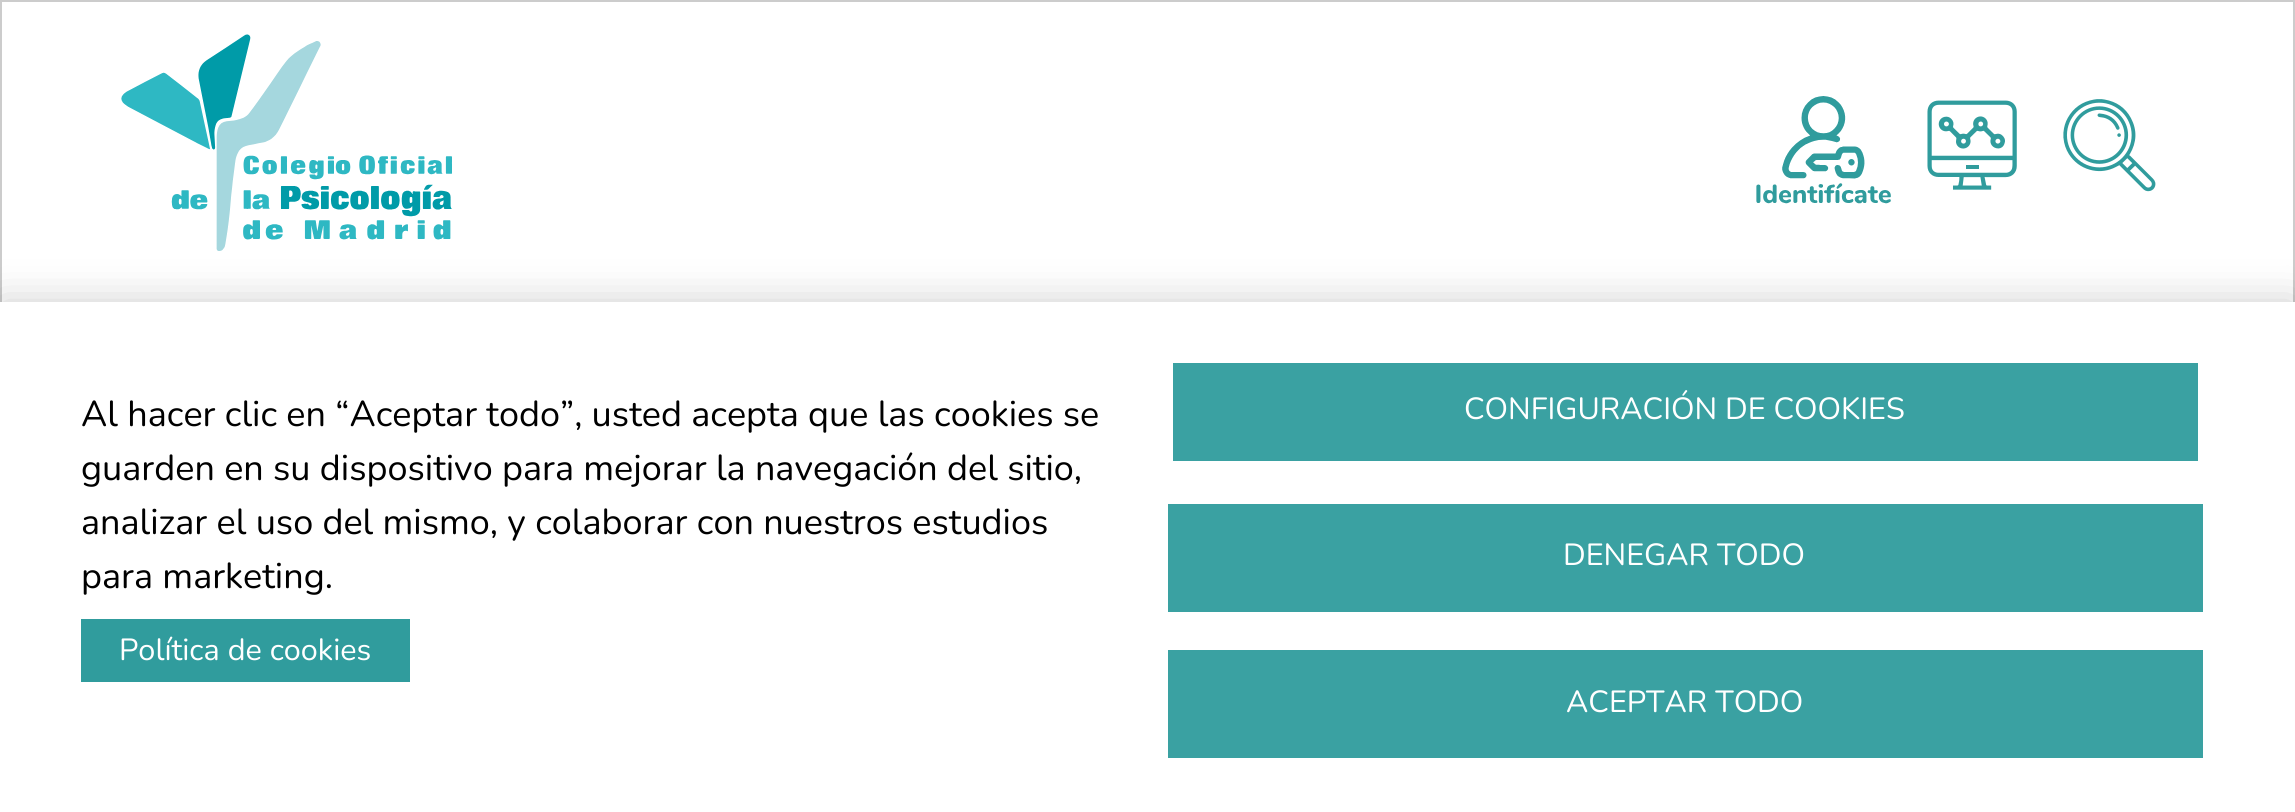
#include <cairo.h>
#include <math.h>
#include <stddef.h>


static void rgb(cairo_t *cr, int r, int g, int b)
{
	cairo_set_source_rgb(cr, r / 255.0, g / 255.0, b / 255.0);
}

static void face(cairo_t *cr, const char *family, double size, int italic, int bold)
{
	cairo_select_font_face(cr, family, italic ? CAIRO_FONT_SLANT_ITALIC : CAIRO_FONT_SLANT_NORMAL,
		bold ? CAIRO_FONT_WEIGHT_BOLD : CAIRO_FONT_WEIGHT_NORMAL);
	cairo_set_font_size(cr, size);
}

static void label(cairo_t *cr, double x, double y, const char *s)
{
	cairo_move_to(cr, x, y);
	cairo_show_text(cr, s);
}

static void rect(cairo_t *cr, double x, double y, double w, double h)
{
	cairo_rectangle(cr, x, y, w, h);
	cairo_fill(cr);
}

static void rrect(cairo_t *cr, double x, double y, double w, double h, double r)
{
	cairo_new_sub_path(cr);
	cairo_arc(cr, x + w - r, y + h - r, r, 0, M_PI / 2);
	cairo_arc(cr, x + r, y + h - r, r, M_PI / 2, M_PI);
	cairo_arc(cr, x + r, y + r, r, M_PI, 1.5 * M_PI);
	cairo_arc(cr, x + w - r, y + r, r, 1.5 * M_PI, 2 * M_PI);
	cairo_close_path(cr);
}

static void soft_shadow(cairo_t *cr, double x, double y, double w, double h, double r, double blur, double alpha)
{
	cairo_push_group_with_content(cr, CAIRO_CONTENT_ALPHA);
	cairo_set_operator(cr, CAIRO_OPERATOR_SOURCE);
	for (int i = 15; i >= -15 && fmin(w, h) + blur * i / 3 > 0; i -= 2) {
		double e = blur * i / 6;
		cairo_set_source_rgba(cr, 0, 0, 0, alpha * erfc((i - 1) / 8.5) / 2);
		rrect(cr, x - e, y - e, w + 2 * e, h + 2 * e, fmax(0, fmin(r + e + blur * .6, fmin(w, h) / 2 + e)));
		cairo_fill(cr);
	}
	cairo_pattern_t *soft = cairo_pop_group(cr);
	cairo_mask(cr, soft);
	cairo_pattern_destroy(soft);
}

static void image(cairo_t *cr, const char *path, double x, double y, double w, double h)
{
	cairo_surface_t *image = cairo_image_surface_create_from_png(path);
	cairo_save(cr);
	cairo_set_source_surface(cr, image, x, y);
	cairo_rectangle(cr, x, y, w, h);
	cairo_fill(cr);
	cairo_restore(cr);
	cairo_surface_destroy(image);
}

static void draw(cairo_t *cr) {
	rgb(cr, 255, 255, 255);
	cairo_paint(cr);
	cairo_rectangle(cr, 1, 1, 2293, 412);
	rgb(cr, 204, 204, 204);
	cairo_stroke(cr);
	image(cr, "image0.png", 121, 34, 331, 217);
	image(cr, "image1.png", 1756, 96, 135, 108);
	image(cr, "image2.png", 1927, 100, 90, 90);
	image(cr, "image3.png", 2063, 99, 93, 93);
	rgb(cr, 0, 0, 0);
	soft_shadow(cr, 0, 302, 2295, 510, 0, 20, 0.2);
	rgb(cr, 255, 255, 255);
	rect(cr, 0, 302, 2295, 510);
	face(cr, "Nunito", 36, 0, 0);
	rgb(cr, 0, 0, 0);
	label(cr, 81, 426, "Al hacer clic en “Aceptar todo”, usted acepta que las cookies se");
	label(cr, 81, 480, "guarden en su dispositivo para mejorar la navegación del sitio,");
	label(cr, 81, 534, "analizar el uso del mismo, y colaborar con nuestros estudios");
	label(cr, 81, 588, "para marketing.");
	rgb(cr, 48, 156, 157);
	rect(cr, 81, 619, 329, 63);
	face(cr, "Nunito", 30.6, 0, 0);
	rgb(cr, 255, 255, 255);
	label(cr, 119, 660, "Política de cookies");
	rgb(cr, 58, 161, 162);
	rect(cr, 1173, 363, 1025, 98);
	rgb(cr, 255, 255, 255);
	label(cr, 1464, 419, "CONFIGURACIÓN DE COOKIES");
	rgb(cr, 58, 161, 162);
	rect(cr, 1168, 504, 1035, 108);
	rgb(cr, 255, 255, 255);
	label(cr, 1563, 565, "DENEGAR TODO");
	rgb(cr, 58, 161, 162);
	rect(cr, 1168, 650, 1035, 108);
	rgb(cr, 255, 255, 255);
	label(cr, 1566, 712, "ACEPTAR TODO");
}

int main(void) {
	cairo_surface_t *surface = cairo_image_surface_create(CAIRO_FORMAT_RGB24, 2295, 812);
	cairo_t *cr = cairo_create(surface);
	cairo_font_options_t *options = cairo_font_options_create();
	cairo_font_options_set_hint_metrics(options, CAIRO_HINT_METRICS_OFF);
	cairo_font_options_set_hint_style(options, CAIRO_HINT_STYLE_NONE);
	cairo_set_font_options(cr, options);
	cairo_set_miter_limit(cr, 4);
	draw(cr);
	cairo_surface_write_to_png(surface, "render.png");
	cairo_font_options_destroy(options);
	cairo_destroy(cr);
	cairo_surface_destroy(surface);
	return 0;
}
